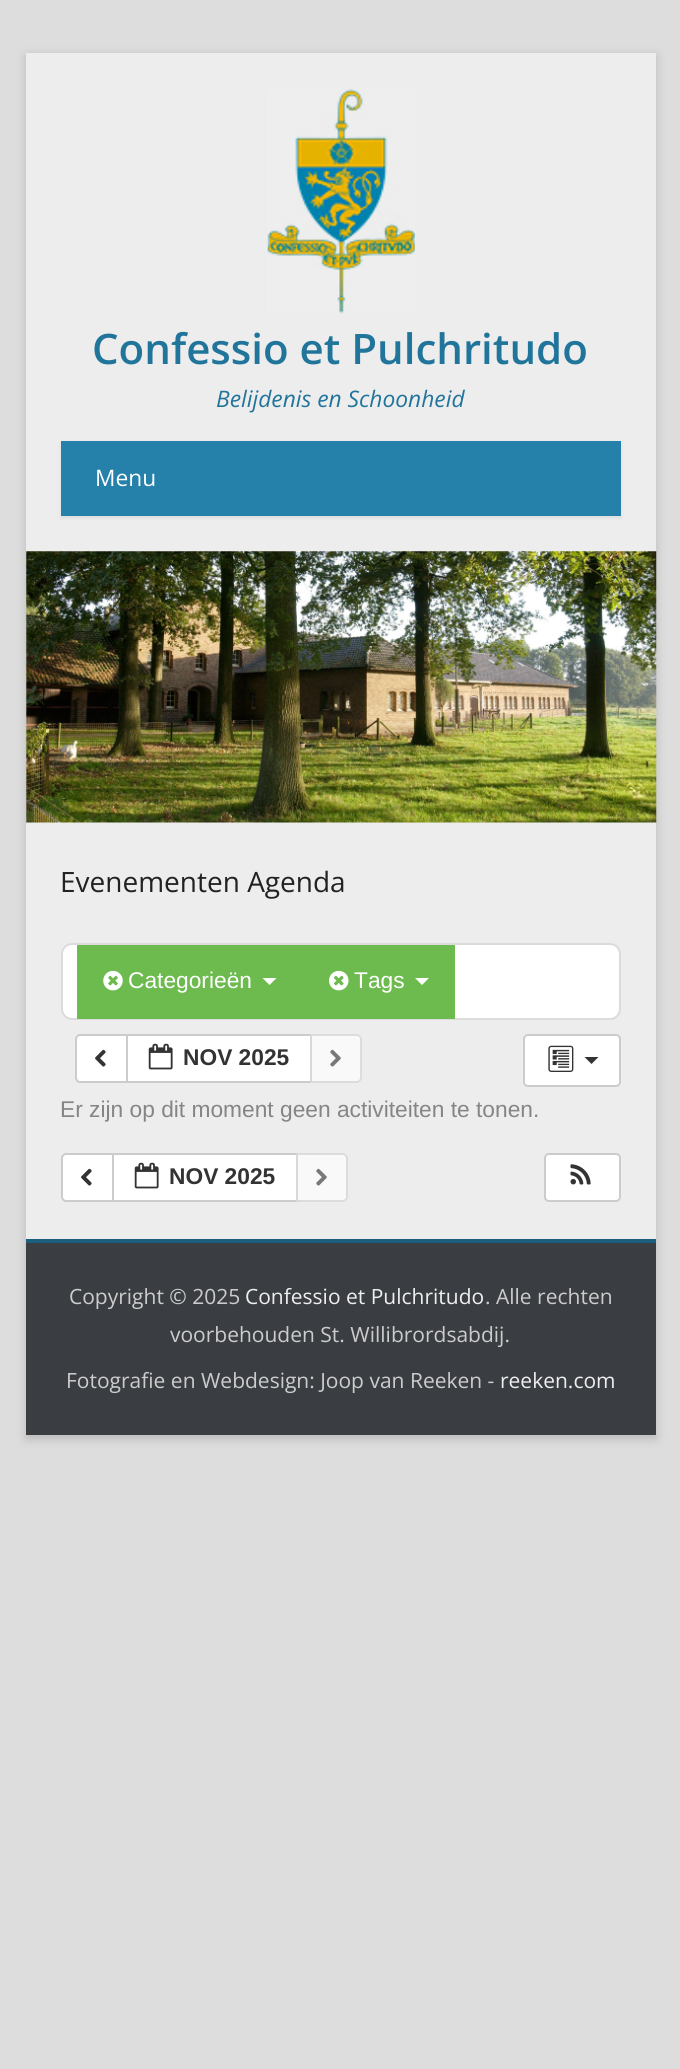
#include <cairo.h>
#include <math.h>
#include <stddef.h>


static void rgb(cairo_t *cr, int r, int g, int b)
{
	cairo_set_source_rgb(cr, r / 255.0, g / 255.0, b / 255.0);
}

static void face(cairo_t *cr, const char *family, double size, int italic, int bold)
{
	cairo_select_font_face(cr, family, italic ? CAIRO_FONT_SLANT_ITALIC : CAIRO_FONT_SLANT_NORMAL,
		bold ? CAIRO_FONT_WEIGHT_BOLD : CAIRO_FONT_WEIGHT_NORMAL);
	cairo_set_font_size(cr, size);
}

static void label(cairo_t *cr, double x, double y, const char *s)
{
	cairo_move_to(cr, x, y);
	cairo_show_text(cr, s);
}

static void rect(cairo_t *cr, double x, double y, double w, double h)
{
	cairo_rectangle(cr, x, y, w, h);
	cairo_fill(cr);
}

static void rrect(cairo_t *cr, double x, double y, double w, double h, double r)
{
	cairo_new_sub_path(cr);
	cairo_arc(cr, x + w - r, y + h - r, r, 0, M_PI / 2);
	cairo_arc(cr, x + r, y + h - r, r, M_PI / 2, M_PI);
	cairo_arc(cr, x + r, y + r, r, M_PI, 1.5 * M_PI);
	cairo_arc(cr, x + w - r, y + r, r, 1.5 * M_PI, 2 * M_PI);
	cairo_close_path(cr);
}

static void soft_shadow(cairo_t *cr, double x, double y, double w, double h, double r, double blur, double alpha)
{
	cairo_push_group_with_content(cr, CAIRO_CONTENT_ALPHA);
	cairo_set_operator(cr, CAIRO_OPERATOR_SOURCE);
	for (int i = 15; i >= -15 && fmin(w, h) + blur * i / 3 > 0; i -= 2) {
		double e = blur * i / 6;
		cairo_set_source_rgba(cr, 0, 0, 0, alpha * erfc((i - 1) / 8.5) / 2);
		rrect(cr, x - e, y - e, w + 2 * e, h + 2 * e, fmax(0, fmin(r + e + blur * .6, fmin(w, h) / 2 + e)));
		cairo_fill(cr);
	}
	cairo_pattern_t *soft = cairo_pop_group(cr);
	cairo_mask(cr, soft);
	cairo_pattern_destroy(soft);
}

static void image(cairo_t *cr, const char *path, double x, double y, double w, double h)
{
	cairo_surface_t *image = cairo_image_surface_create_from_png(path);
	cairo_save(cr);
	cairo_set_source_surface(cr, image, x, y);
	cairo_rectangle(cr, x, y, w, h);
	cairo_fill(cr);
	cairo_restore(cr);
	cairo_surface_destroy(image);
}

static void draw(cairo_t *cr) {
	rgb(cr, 221, 221, 221);
	cairo_paint(cr);
	rgb(cr, 100, 100, 100);
	soft_shadow(cr, 26, 56, 630, 1383, 0, 5, 0.3);
	rgb(cr, 237, 237, 237);
	rect(cr, 26, 53, 630, 1186);
	image(cr, "image0.png", 267, 89, 148, 225);
	face(cr, "Open Sans SemiBold", 42, 0, 0);
	rgb(cr, 33, 117, 155);
	label(cr, 92, 364, "Confessio et Pulchritudo");
	face(cr, "Open Sans", 22.75, 1, 0);
	label(cr, 216, 407, "Belijdenis en Schoonheid");
	rgb(cr, 64, 64, 64);
	soft_shadow(cr, 61, 443, 560, 75, 0, 2, 0.1);
	rgb(cr, 37, 129, 170);
	rect(cr, 61, 441, 560, 75);
	face(cr, "Open Sans", 22.75, 0, 0);
	rgb(cr, 255, 255, 255);
	label(cr, 95, 486, "Menu");
	image(cr, "image1.png", 26, 551, 631, 272);
	face(cr, "Open Sans", 28, 0, 0);
	rgb(cr, 34, 34, 34);
	label(cr, 60, 892, "Evenementen Agenda");
	rgb(cr, 255, 255, 255);
	rrect(cr, 62, 944, 558, 75, 10);
	cairo_fill_preserve(cr);
	rgb(cr, 219, 219, 219);
	cairo_stroke(cr);
	rgb(cr, 109, 187, 79);
	rect(cr, 77, 945, 378, 74);
	image(cr, "image2.png", 103, 970, 20, 21);
	face(cr, "Liberation Sans", 22.75, 0, 0);
	rgb(cr, 255, 255, 255);
	label(cr, 128, 988, "Categorieën");
	cairo_new_path(cr);
	cairo_move_to(cr, 262.5, 978);
	cairo_line_to(cr, 276.5, 978);
	cairo_line_to(cr, 269.5, 985);
	cairo_close_path(cr);
	cairo_fill(cr);
	image(cr, "image3.png", 329, 970, 20, 21);
	label(cr, 354, 988, "Tags");
	cairo_new_path(cr);
	cairo_move_to(cr, 415, 978);
	cairo_line_to(cr, 429, 978);
	cairo_line_to(cr, 422, 985);
	cairo_close_path(cr);
	cairo_fill(cr);
	cairo_new_path(cr);
	cairo_move_to(cr, 80, 1035);
	cairo_line_to(cr, 127, 1035);
	cairo_line_to(cr, 127, 1082);
	cairo_line_to(cr, 80, 1082);
	cairo_curve_to(cr, 78, 1082, 76, 1080, 76, 1078);
	cairo_line_to(cr, 76, 1039);
	cairo_curve_to(cr, 76, 1037, 78, 1035, 80, 1035);
	cairo_close_path(cr);
	cairo_fill_preserve(cr);
	rgb(cr, 204, 204, 204);
	cairo_stroke(cr);
	image(cr, "image4.png", 95, 1049, 11, 18);
	rgb(cr, 255, 255, 255);
	cairo_rectangle(cr, 127, 1035, 184, 47);
	cairo_fill_preserve(cr);
	rgb(cr, 204, 204, 204);
	cairo_stroke(cr);
	image(cr, "image5.png", 148, 1043, 25, 27);
	face(cr, "Liberation Sans", 22.75, 0, 1);
	rgb(cr, 51, 51, 51);
	label(cr, 183, 1065, "NOV 2025");
	cairo_set_source_rgba(cr, 1, 1, 1, 0.65);
	cairo_new_path(cr);
	cairo_move_to(cr, 310, 1034);
	cairo_line_to(cr, 357, 1034);
	cairo_curve_to(cr, 360, 1034, 362, 1036, 362, 1039);
	cairo_line_to(cr, 362, 1078);
	cairo_curve_to(cr, 362, 1081, 360, 1083, 357, 1083);
	cairo_line_to(cr, 310, 1083);
	cairo_close_path(cr);
	cairo_fill(cr);
	cairo_new_path(cr);
	cairo_move_to(cr, 311, 1035);
	cairo_line_to(cr, 357, 1035);
	cairo_curve_to(cr, 359, 1035, 361, 1037, 361, 1039);
	cairo_line_to(cr, 361, 1078);
	cairo_curve_to(cr, 361, 1080, 359, 1082, 357, 1082);
	cairo_line_to(cr, 311, 1082);
	cairo_close_path(cr);
	cairo_set_source_rgba(cr, 0.8, 0.8, 0.8, 0.65);
	cairo_stroke(cr);
	image(cr, "image6.png", 330, 1049, 11, 18);
	rgb(cr, 255, 255, 255);
	rrect(cr, 524, 1035, 96, 51, 4);
	cairo_fill_preserve(cr);
	rgb(cr, 204, 204, 204);
	cairo_stroke(cr);
	image(cr, "image7.png", 548, 1045, 26, 27);
	rgb(cr, 51, 51, 51);
	cairo_new_path(cr);
	cairo_move_to(cr, 584.5, 1057);
	cairo_line_to(cr, 598.5, 1057);
	cairo_line_to(cr, 591.5, 1064);
	cairo_close_path(cr);
	cairo_fill(cr);
	face(cr, "Liberation Sans", 22.75, 0, 0);
	rgb(cr, 133, 133, 133);
	label(cr, 60, 1117, "Er zijn op dit moment geen activiteiten te tonen.");
	rgb(cr, 255, 255, 255);
	cairo_new_path(cr);
	cairo_move_to(cr, 66, 1154);
	cairo_line_to(cr, 113, 1154);
	cairo_line_to(cr, 113, 1201);
	cairo_line_to(cr, 66, 1201);
	cairo_curve_to(cr, 64, 1201, 62, 1199, 62, 1197);
	cairo_line_to(cr, 62, 1158);
	cairo_curve_to(cr, 62, 1156, 64, 1154, 66, 1154);
	cairo_close_path(cr);
	cairo_fill_preserve(cr);
	rgb(cr, 204, 204, 204);
	cairo_stroke(cr);
	image(cr, "image4.png", 81, 1168, 11, 18);
	rgb(cr, 255, 255, 255);
	cairo_rectangle(cr, 113, 1154, 184, 47);
	cairo_fill_preserve(cr);
	rgb(cr, 204, 204, 204);
	cairo_stroke(cr);
	image(cr, "image5.png", 134, 1162, 25, 27);
	face(cr, "Liberation Sans", 22.75, 0, 1);
	rgb(cr, 51, 51, 51);
	label(cr, 169, 1184, "NOV 2025");
	cairo_set_source_rgba(cr, 1, 1, 1, 0.65);
	cairo_new_path(cr);
	cairo_move_to(cr, 296, 1153);
	cairo_line_to(cr, 343, 1153);
	cairo_curve_to(cr, 346, 1153, 348, 1155, 348, 1158);
	cairo_line_to(cr, 348, 1197);
	cairo_curve_to(cr, 348, 1200, 346, 1202, 343, 1202);
	cairo_line_to(cr, 296, 1202);
	cairo_close_path(cr);
	cairo_fill(cr);
	cairo_new_path(cr);
	cairo_move_to(cr, 297, 1154);
	cairo_line_to(cr, 343, 1154);
	cairo_curve_to(cr, 345, 1154, 347, 1156, 347, 1158);
	cairo_line_to(cr, 347, 1197);
	cairo_curve_to(cr, 347, 1199, 345, 1201, 343, 1201);
	cairo_line_to(cr, 297, 1201);
	cairo_close_path(cr);
	cairo_set_source_rgba(cr, 0.8, 0.8, 0.8, 0.65);
	cairo_stroke(cr);
	image(cr, "image6.png", 316, 1168, 11, 18);
	rgb(cr, 255, 255, 255);
	rrect(cr, 545, 1154, 75, 47, 4);
	cairo_fill_preserve(cr);
	rgb(cr, 204, 204, 204);
	cairo_stroke(cr);
	image(cr, "image8.png", 570, 1164, 21, 21);
	rgb(cr, 27, 95, 125);
	rect(cr, 26, 1239, 630, 4);
	rgb(cr, 58, 61, 65);
	rect(cr, 26, 1243, 630, 192);
	face(cr, "Open Sans", 21, 0, 0);
	rgb(cr, 204, 204, 204);
	label(cr, 69, 1304, "Copyright © 2025");
	rgb(cr, 238, 238, 238);
	label(cr, 245, 1304, "Confessio et Pulchritudo");
	rgb(cr, 204, 204, 204);
	label(cr, 485, 1304, ". Alle rechten");
	label(cr, 170, 1342, "voorbehouden St. Willibrordsabdij.");
	label(cr, 66, 1388, "Fotografie en Webdesign: Joop van Reeken -");
	rgb(cr, 238, 238, 238);
	label(cr, 500, 1388, "reeken.com");
}

int main(void) {
	cairo_surface_t *surface = cairo_image_surface_create(CAIRO_FORMAT_RGB24, 680, 2069);
	cairo_t *cr = cairo_create(surface);
	cairo_font_options_t *options = cairo_font_options_create();
	cairo_font_options_set_hint_metrics(options, CAIRO_HINT_METRICS_OFF);
	cairo_font_options_set_hint_style(options, CAIRO_HINT_STYLE_NONE);
	cairo_set_font_options(cr, options);
	cairo_set_miter_limit(cr, 4);
	draw(cr);
	cairo_surface_write_to_png(surface, "render.png");
	cairo_font_options_destroy(options);
	cairo_destroy(cr);
	cairo_surface_destroy(surface);
	return 0;
}
